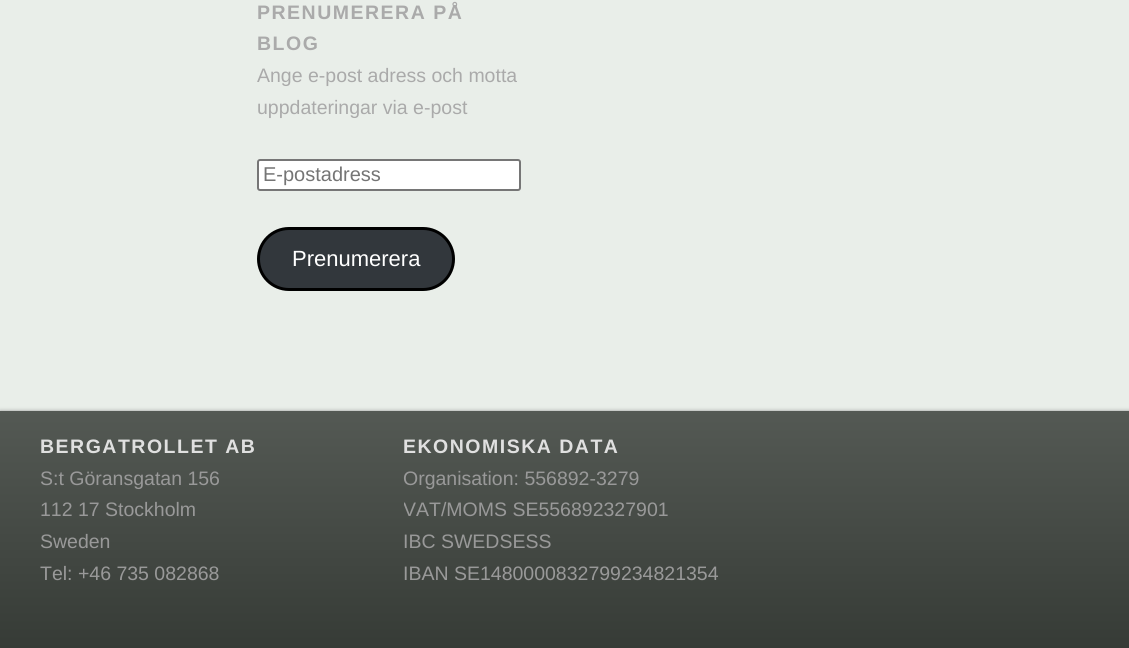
#include <cairo.h>
#include <math.h>
#include <stddef.h>


static void rgb(cairo_t *cr, int r, int g, int b)
{
	cairo_set_source_rgb(cr, r / 255.0, g / 255.0, b / 255.0);
}

static void face(cairo_t *cr, const char *family, double size, int italic, int bold)
{
	cairo_select_font_face(cr, family, italic ? CAIRO_FONT_SLANT_ITALIC : CAIRO_FONT_SLANT_NORMAL,
		bold ? CAIRO_FONT_WEIGHT_BOLD : CAIRO_FONT_WEIGHT_NORMAL);
	cairo_set_font_size(cr, size);
}

static void label(cairo_t *cr, double x, double y, const char *s)
{
	cairo_move_to(cr, x, y);
	cairo_show_text(cr, s);
}

static void tracked(cairo_t *cr, double x, double y, const char *s, double letter, double word)
{
	cairo_move_to(cr, x, y);
	while (*s) {
		char ch[5] = {0};
		int n = 0;
		do ch[n++] = *s++; while ((*s & 0xC0) == 0x80);
		cairo_show_text(cr, ch);
		cairo_rel_move_to(cr, letter + word * (*ch == ' '), 0);
	}
}

static void rect(cairo_t *cr, double x, double y, double w, double h)
{
	cairo_rectangle(cr, x, y, w, h);
	cairo_fill(cr);
}

static void rrect(cairo_t *cr, double x, double y, double w, double h, double r)
{
	cairo_new_sub_path(cr);
	cairo_arc(cr, x + w - r, y + h - r, r, 0, M_PI / 2);
	cairo_arc(cr, x + r, y + h - r, r, M_PI / 2, M_PI);
	cairo_arc(cr, x + r, y + r, r, M_PI, 1.5 * M_PI);
	cairo_arc(cr, x + w - r, y + r, r, 1.5 * M_PI, 2 * M_PI);
	cairo_close_path(cr);
}

static void soft_shadow(cairo_t *cr, double x, double y, double w, double h, double r, double blur, double alpha)
{
	cairo_push_group_with_content(cr, CAIRO_CONTENT_ALPHA);
	cairo_set_operator(cr, CAIRO_OPERATOR_SOURCE);
	for (int i = 15; i >= -15 && fmin(w, h) + blur * i / 3 > 0; i -= 2) {
		double e = blur * i / 6;
		cairo_set_source_rgba(cr, 0, 0, 0, alpha * erfc((i - 1) / 8.5) / 2);
		rrect(cr, x - e, y - e, w + 2 * e, h + 2 * e, fmax(0, fmin(r + e + blur * .6, fmin(w, h) / 2 + e)));
		cairo_fill(cr);
	}
	cairo_pattern_t *soft = cairo_pop_group(cr);
	cairo_mask(cr, soft);
	cairo_pattern_destroy(soft);
}

static void draw(cairo_t *cr) {
	cairo_pattern_t *gradient;
	rgb(cr, 233, 238, 233);
	cairo_paint(cr);
	face(cr, "Liberation Sans", 19.5, 0, 1);
	rgb(cr, 170, 170, 170);
	tracked(cr, 257, 19, "PRENUMERERA PÅ", 1.5, 0);
	tracked(cr, 257, 50, "BLOG", 1.5, 0);
	face(cr, "Liberation Sans", 19.5, 0, 0);
	label(cr, 257, 82, "Ange e-post adress och motta");
	label(cr, 257, 114, "uppdateringar via e-post");
	rgb(cr, 255, 255, 255);
	rrect(cr, 258, 160, 262, 30, 2);
	cairo_fill_preserve(cr);
	rgb(cr, 118, 118, 118);
	cairo_stroke(cr);
	face(cr, "Liberation Sans", 20, 0, 0);
	rgb(cr, 117, 117, 117);
	label(cr, 263, 181, "E-postadress");
	rgb(cr, 50, 55, 60);
	rrect(cr, 258.5, 228.5, 195, 61, 30.5);
	cairo_fill_preserve(cr);
	rgb(cr, 0, 0, 0);
	cairo_set_line_width(cr, 3);
	cairo_stroke(cr);
	face(cr, "Liberation Sans", 22, 0, 0);
	rgb(cr, 255, 255, 255);
	label(cr, 292, 266, "Prenumerera");
	rgb(cr, 153, 153, 153);
	soft_shadow(cr, 0, 411, 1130, 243, 0, 2, 1);
	gradient = cairo_pattern_create_linear(565, 411, 565, 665);
	cairo_pattern_add_color_stop_rgba(gradient, 0, 0.329, 0.349, 0.329, 1);
	cairo_pattern_add_color_stop_rgba(gradient, 1, 0.204, 0.224, 0.204, 1);
	cairo_set_source(cr, gradient);
	cairo_pattern_destroy(gradient);
	rect(cr, 0, 411, 1129, 237);
	face(cr, "Liberation Sans", 19.5, 0, 1);
	rgb(cr, 224, 224, 224);
	tracked(cr, 40, 453, "BERGATROLLET AB", 1.5, 0);
	face(cr, "Liberation Sans", 19.5, 0, 0);
	rgb(cr, 153, 153, 153);
	label(cr, 40, 485, "S:t Göransgatan 156");
	label(cr, 40, 516, "112 17 Stockholm");
	label(cr, 40, 548, "Sweden");
	label(cr, 40, 580, "Tel: +46 735 082868");
	face(cr, "Liberation Sans", 19.5, 0, 1);
	rgb(cr, 224, 224, 224);
	tracked(cr, 403, 453, "EKONOMISKA DATA", 1.5, 0);
	face(cr, "Liberation Sans", 19.5, 0, 0);
	rgb(cr, 153, 153, 153);
	label(cr, 403, 485, "Organisation: 556892-3279");
	cairo_save(cr);
	cairo_rectangle(cr, 404, 431, 322, 193);
	cairo_clip(cr);
	label(cr, 403, 516, "VAT/MOMS SE556892327901");
	cairo_restore(cr);
	label(cr, 403, 548, "IBC SWEDSESS");
	label(cr, 403, 580, "IBAN SE1480000832799234821354");
}

int main(void) {
	cairo_surface_t *surface = cairo_image_surface_create(CAIRO_FORMAT_RGB24, 1129, 648);
	cairo_t *cr = cairo_create(surface);
	cairo_font_options_t *options = cairo_font_options_create();
	cairo_font_options_set_hint_metrics(options, CAIRO_HINT_METRICS_OFF);
	cairo_font_options_set_hint_style(options, CAIRO_HINT_STYLE_NONE);
	cairo_set_font_options(cr, options);
	cairo_set_miter_limit(cr, 4);
	draw(cr);
	cairo_surface_write_to_png(surface, "render.png");
	cairo_font_options_destroy(options);
	cairo_destroy(cr);
	cairo_surface_destroy(surface);
	return 0;
}
